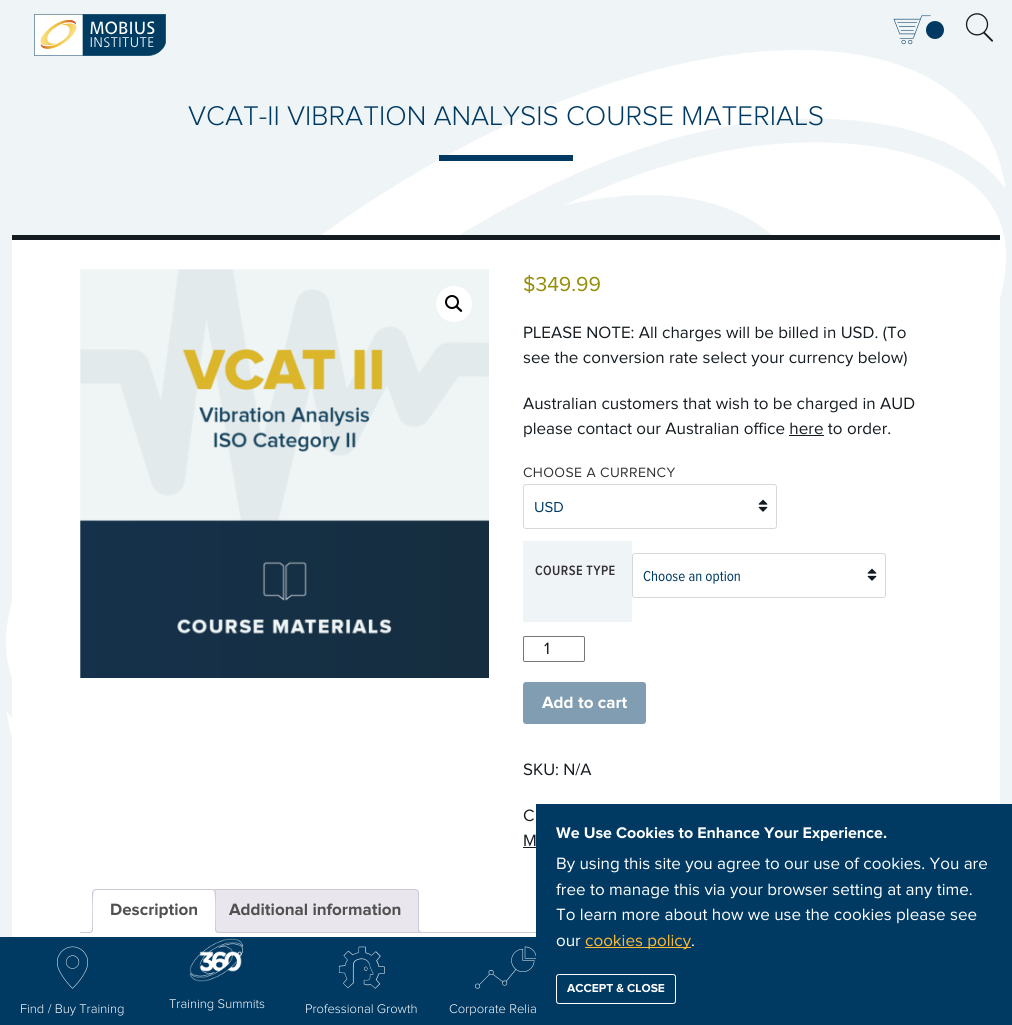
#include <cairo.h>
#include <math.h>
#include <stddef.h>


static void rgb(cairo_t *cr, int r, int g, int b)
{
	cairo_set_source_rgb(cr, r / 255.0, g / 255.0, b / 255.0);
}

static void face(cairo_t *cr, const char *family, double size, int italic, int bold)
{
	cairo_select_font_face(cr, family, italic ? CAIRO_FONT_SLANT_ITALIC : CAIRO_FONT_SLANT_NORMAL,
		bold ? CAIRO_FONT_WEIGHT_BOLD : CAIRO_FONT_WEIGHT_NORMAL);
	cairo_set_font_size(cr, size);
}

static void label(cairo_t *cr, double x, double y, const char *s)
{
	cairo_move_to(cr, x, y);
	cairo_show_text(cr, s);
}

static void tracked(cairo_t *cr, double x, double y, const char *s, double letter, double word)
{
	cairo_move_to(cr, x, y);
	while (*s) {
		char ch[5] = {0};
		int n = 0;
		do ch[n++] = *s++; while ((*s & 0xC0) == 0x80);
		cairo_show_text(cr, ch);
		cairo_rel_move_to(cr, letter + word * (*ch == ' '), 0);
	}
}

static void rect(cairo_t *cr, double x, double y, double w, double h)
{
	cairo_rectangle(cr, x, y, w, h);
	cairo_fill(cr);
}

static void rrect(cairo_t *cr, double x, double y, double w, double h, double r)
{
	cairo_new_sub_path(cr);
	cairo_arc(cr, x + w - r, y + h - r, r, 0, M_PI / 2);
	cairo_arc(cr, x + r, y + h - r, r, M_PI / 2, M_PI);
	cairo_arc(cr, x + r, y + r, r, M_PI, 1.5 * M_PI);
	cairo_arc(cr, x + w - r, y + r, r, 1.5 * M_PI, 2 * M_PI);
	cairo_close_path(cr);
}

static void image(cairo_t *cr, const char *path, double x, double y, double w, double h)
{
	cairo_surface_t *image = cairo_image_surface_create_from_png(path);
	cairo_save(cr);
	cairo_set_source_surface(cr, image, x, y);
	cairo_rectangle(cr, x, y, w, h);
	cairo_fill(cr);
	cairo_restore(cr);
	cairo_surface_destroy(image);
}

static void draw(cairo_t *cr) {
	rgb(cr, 239, 244, 246);
	cairo_paint(cr);
	image(cr, "image0.png", 6, 50, 1000, 687);
	image(cr, "image1.png", 34, 14, 132, 42);
	image(cr, "image2.png", 893, 15, 38, 30);
	rgb(cr, 0, 58, 99);
	cairo_arc(cr, 935, 30, 9, 0, 2 * M_PI);
	cairo_fill(cr);
	image(cr, "image3.png", 965, 13, 28, 29);
	face(cr, "Proxima Nova Light", 28, 0, 0);
	label(cr, 188, 125, "VCAT-II VIBRATION ANALYSIS COURSE MATERIALS");
	rect(cr, 439, 155, 134, 6);
	rgb(cr, 255, 255, 255);
	rect(cr, 12, 240, 988, 697);
	rgb(cr, 20, 28, 33);
	rect(cr, 12, 235, 988, 5);
	image(cr, "image4.png", 80, 269, 409, 409);
	rgb(cr, 255, 255, 255);
	cairo_arc(cr, 454, 304, 18, 0, 2 * M_PI);
	cairo_fill(cr);
	cairo_arc(cr, 452, 302, 6, 0, 2 * M_PI);
	rgb(cr, 0, 0, 0);
	cairo_stroke(cr);
	cairo_new_path(cr);
	cairo_move_to(cr, 456, 306);
	cairo_curve_to(cr, 457.5, 305, 459, 307.5, 459.5, 308);
	cairo_curve_to(cr, 460.5, 308.5, 463, 310.5, 462, 311.5);
	cairo_curve_to(cr, 460.5, 313, 459, 310, 458, 309.5);
	cairo_curve_to(cr, 457.5, 309, 455, 307, 456, 306);
	cairo_close_path(cr);
	cairo_fill(cr);
	face(cr, "Proxima Nova", 21, 0, 0);
	rgb(cr, 149, 142, 9);
	label(cr, 523, 291, "$349.99");
	face(cr, "Proxima Nova", 17, 0, 0);
	rgb(cr, 20, 28, 33);
	label(cr, 523, 338, "PLEASE NOTE: All charges will be billed in USD. (To");
	label(cr, 523, 363, "see the conversion rate select your currency below)");
	label(cr, 523, 409, "Australian customers that wish to be charged in AUD");
	label(cr, 523, 434, "please contact our Australian office here to order.");
	rect(cr, 789, 435, 35, 1);
	face(cr, "Proxima Nova", 14, 0, 0);
	rgb(cr, 53, 51, 55);
	tracked(cr, 523, 477, "CHOOSE A CURRENCY", 0.4, 0);
	rrect(cr, 523.5, 484.5, 253, 44, 2.5);
	rgb(cr, 213, 217, 219);
	cairo_set_line_width(cr, 1);
	cairo_stroke(cr);
	face(cr, "Proxima Nova", 15, 0, 0);
	rgb(cr, 0, 58, 99);
	label(cr, 534, 512, "USD");
	image(cr, "image5.png", 758, 499, 10, 13);
	rgb(cr, 239, 244, 246);
	rect(cr, 523, 541, 109, 81);
	face(cr, "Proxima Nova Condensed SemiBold", 14, 0, 0);
	rgb(cr, 53, 51, 55);
	tracked(cr, 535, 575, "COURSE TYPE", 0.4, 0);
	rrect(cr, 632.5, 553.5, 253, 44, 2.5);
	rgb(cr, 213, 217, 219);
	cairo_stroke(cr);
	face(cr, "Proxima Nova Condensed", 15, 0, 0);
	rgb(cr, 0, 58, 99);
	label(cr, 643, 581, "Choose an option");
	image(cr, "image5.png", 867, 568, 10, 13);
	rrect(cr, 523.5, 636.5, 61, 25, 1.5);
	rgb(cr, 118, 118, 118);
	cairo_stroke(cr);
	face(cr, "Proxima Nova", 17, 0, 0);
	rgb(cr, 20, 28, 33);
	label(cr, 544, 654, "1");
	rgb(cr, 128, 157, 177);
	rrect(cr, 524, 683, 121, 40, 2);
	cairo_fill_preserve(cr);
	cairo_set_line_width(cr, 2);
	cairo_stroke(cr);
	face(cr, "Proxima Nova", 17, 0, 1);
	rgb(cr, 255, 255, 255);
	label(cr, 542, 708, "Add to cart");
	face(cr, "Proxima Nova", 17, 0, 0);
	rgb(cr, 20, 28, 33);
	label(cr, 523, 775, "SKU: N/A");
	label(cr, 523, 821, "C");
	label(cr, 523, 846, "M");
	rect(cr, 523, 847, 13, 1);
	rgb(cr, 233, 230, 237);
	cairo_new_path(cr);
	cairo_move_to(cr, 215, 889.5);
	cairo_line_to(cr, 415, 889.5);
	cairo_curve_to(cr, 417, 889.5, 418.5, 891, 418.5, 893);
	cairo_line_to(cr, 418.5, 932.5);
	cairo_line_to(cr, 211.5, 932.5);
	cairo_line_to(cr, 211.5, 893);
	cairo_curve_to(cr, 211.5, 891, 213, 889.5, 215, 889.5);
	cairo_close_path(cr);
	cairo_fill_preserve(cr);
	rgb(cr, 207, 200, 216);
	cairo_set_line_width(cr, 1);
	cairo_stroke(cr);
	cairo_save(cr);
	cairo_rectangle(cr, 80, 889, 852, 44);
	cairo_clip(cr);
	rgb(cr, 233, 230, 237);
	cairo_new_path(cr);
	cairo_move_to(cr, 416, 930);
	cairo_curve_to(cr, 416, 933.5, 417.5, 935, 421, 935);
	cairo_line_to(cr, 421, 933);
	cairo_curve_to(cr, 419.5, 932.5, 418.5, 931.5, 418, 930);
	cairo_close_path(cr);
	cairo_fill(cr);
	cairo_restore(cr);
	cairo_set_fill_rule(cr, CAIRO_FILL_RULE_EVEN_ODD);
	cairo_new_path(cr);
	cairo_move_to(cr, 418, 928);
	cairo_line_to(cr, 423, 928);
	cairo_line_to(cr, 423, 933);
	cairo_curve_to(cr, 420.5, 933, 418, 932, 418, 929);
	cairo_close_path(cr);
	cairo_move_to(cr, 419, 928);
	cairo_line_to(cr, 423, 928);
	cairo_line_to(cr, 423, 932);
	cairo_curve_to(cr, 421, 932, 419, 931.5, 419, 929);
	cairo_close_path(cr);
	cairo_fill(cr);
	rect(cr, 80, 932, 456, 1);
	rgb(cr, 255, 255, 255);
	cairo_new_path(cr);
	cairo_move_to(cr, 96, 889);
	cairo_line_to(cr, 212, 889);
	cairo_curve_to(cr, 214, 889, 216, 891, 216, 893);
	cairo_line_to(cr, 216, 933);
	cairo_line_to(cr, 92, 933);
	cairo_line_to(cr, 92, 893);
	cairo_curve_to(cr, 92, 891, 94, 889, 96, 889);
	cairo_close_path(cr);
	cairo_fill(cr);
	rgb(cr, 207, 200, 216);
	cairo_set_fill_rule(cr, CAIRO_FILL_RULE_WINDING);
	cairo_new_path(cr);
	cairo_move_to(cr, 96, 889);
	cairo_line_to(cr, 93, 890);
	cairo_line_to(cr, 94, 891);
	cairo_line_to(cr, 96, 890);
	cairo_line_to(cr, 212, 890);
	cairo_line_to(cr, 214, 891);
	cairo_line_to(cr, 215, 890);
	cairo_line_to(cr, 212, 889);
	cairo_close_path(cr);
	cairo_fill(cr);
	cairo_new_path(cr);
	cairo_move_to(cr, 216, 933);
	cairo_line_to(cr, 216, 893);
	cairo_curve_to(cr, 216, 892, 216, 891, 215, 890);
	cairo_line_to(cr, 214, 891);
	cairo_curve_to(cr, 216, 893, 215, 927, 215, 932);
	cairo_close_path(cr);
	cairo_fill(cr);
	rgb(cr, 255, 255, 255);
	cairo_new_path(cr);
	cairo_move_to(cr, 216, 933);
	cairo_line_to(cr, 215, 932);
	cairo_line_to(cr, 93, 932);
	cairo_line_to(cr, 92, 933);
	cairo_close_path(cr);
	cairo_fill(cr);
	rgb(cr, 207, 200, 216);
	cairo_new_path(cr);
	cairo_move_to(cr, 92, 933);
	cairo_line_to(cr, 93, 932);
	cairo_curve_to(cr, 93, 927, 92, 893, 94, 891);
	cairo_line_to(cr, 93, 890);
	cairo_line_to(cr, 92, 893);
	cairo_close_path(cr);
	cairo_fill(cr);
	face(cr, "Proxima Nova", 17, 0, 1);
	rgb(cr, 81, 81, 81);
	label(cr, 110, 915, "Description");
	cairo_save(cr);
	cairo_rectangle(cr, 80, 889, 852, 44);
	cairo_clip(cr);
	rgb(cr, 255, 255, 255);
	cairo_new_path(cr);
	cairo_move_to(cr, 90, 933);
	cairo_line_to(cr, 90, 935);
	cairo_curve_to(cr, 93.5, 935, 95, 933.5, 95, 930);
	cairo_line_to(cr, 93, 930);
	cairo_curve_to(cr, 92.5, 931.5, 91.5, 932.5, 90, 933);
	cairo_close_path(cr);
	cairo_fill(cr);
	cairo_restore(cr);
	rgb(cr, 207, 200, 216);
	cairo_set_fill_rule(cr, CAIRO_FILL_RULE_EVEN_ODD);
	cairo_new_path(cr);
	cairo_move_to(cr, 88, 928);
	cairo_line_to(cr, 93, 928);
	cairo_curve_to(cr, 93, 931.5, 91.5, 933, 88, 933);
	cairo_close_path(cr);
	cairo_move_to(cr, 88, 928);
	cairo_line_to(cr, 92, 928);
	cairo_curve_to(cr, 92, 931, 91, 932, 88, 932);
	cairo_close_path(cr);
	cairo_fill(cr);
	cairo_save(cr);
	cairo_set_fill_rule(cr, CAIRO_FILL_RULE_WINDING);
	cairo_rectangle(cr, 80, 889, 852, 44);
	cairo_clip(cr);
	rgb(cr, 255, 255, 255);
	cairo_new_path(cr);
	cairo_move_to(cr, 213, 930);
	cairo_curve_to(cr, 213, 933.5, 214.5, 935, 218, 935);
	cairo_line_to(cr, 218, 933);
	cairo_curve_to(cr, 216.5, 932.5, 215.5, 931.5, 215, 930);
	cairo_close_path(cr);
	cairo_fill(cr);
	cairo_restore(cr);
	cairo_new_path(cr);
	cairo_move_to(cr, 215, 928);
	cairo_line_to(cr, 220, 928);
	cairo_line_to(cr, 220, 933);
	cairo_curve_to(cr, 217.5, 933, 215, 932, 215, 929);
	cairo_close_path(cr);
	cairo_move_to(cr, 216, 928);
	cairo_line_to(cr, 220, 928);
	cairo_line_to(cr, 220, 932);
	cairo_curve_to(cr, 218, 932, 216, 931.5, 216, 929);
	cairo_close_path(cr);
	cairo_fill(cr);
	rgb(cr, 81, 81, 81);
	label(cr, 229, 915, "Additional information");
	rgb(cr, 0, 58, 99);
	rect(cr, 0, 937, 536, 88);
	image(cr, "image6.png", 57, 946, 32, 43);
	face(cr, "Proxima Nova Light", 13, 0, 0);
	rgb(cr, 255, 255, 255);
	label(cr, 20, 1013, "Find / Buy Training");
	image(cr, "image7.png", 189, 938, 55, 44);
	label(cr, 169, 1008, "Training Summits");
	image(cr, "image8.png", 339, 946, 46, 43);
	label(cr, 305, 1013, "Professional Growth");
	image(cr, "image9.png", 475, 946, 61, 43);
	label(cr, 449, 1013, "Corporate Relia");
	rgb(cr, 0, 58, 99);
	rect(cr, 536, 804, 476, 221);
	face(cr, "Proxima Nova", 16, 0, 1);
	rgb(cr, 255, 255, 255);
	label(cr, 556, 838, "We Use Cookies to Enhance Your Experience.");
	face(cr, "Proxima Nova", 17, 0, 0);
	label(cr, 556, 869, "By using this site you agree to our use of cookies. You are");
	label(cr, 556, 895, "free to manage this via your browser setting at any time.");
	label(cr, 556, 920, "To learn more about how we use the cookies please see");
	label(cr, 556, 946, "our");
	rgb(cr, 255, 185, 50);
	rect(cr, 585, 947, 106, 1);
	label(cr, 585, 946, "cookies policy");
	rgb(cr, 255, 255, 255);
	label(cr, 691, 946, ".");
	rrect(cr, 556.5, 974.5, 119, 29, 2.5);
	cairo_stroke(cr);
	face(cr, "Proxima Nova", 12, 0, 1);
	label(cr, 567, 992, "ACCEPT & CLOSE");
}

int main(void) {
	cairo_surface_t *surface = cairo_image_surface_create(CAIRO_FORMAT_RGB24, 1012, 1025);
	cairo_t *cr = cairo_create(surface);
	cairo_font_options_t *options = cairo_font_options_create();
	cairo_font_options_set_hint_metrics(options, CAIRO_HINT_METRICS_OFF);
	cairo_font_options_set_hint_style(options, CAIRO_HINT_STYLE_NONE);
	cairo_set_font_options(cr, options);
	cairo_set_miter_limit(cr, 4);
	draw(cr);
	cairo_surface_write_to_png(surface, "render.png");
	cairo_font_options_destroy(options);
	cairo_destroy(cr);
	cairo_surface_destroy(surface);
	return 0;
}
